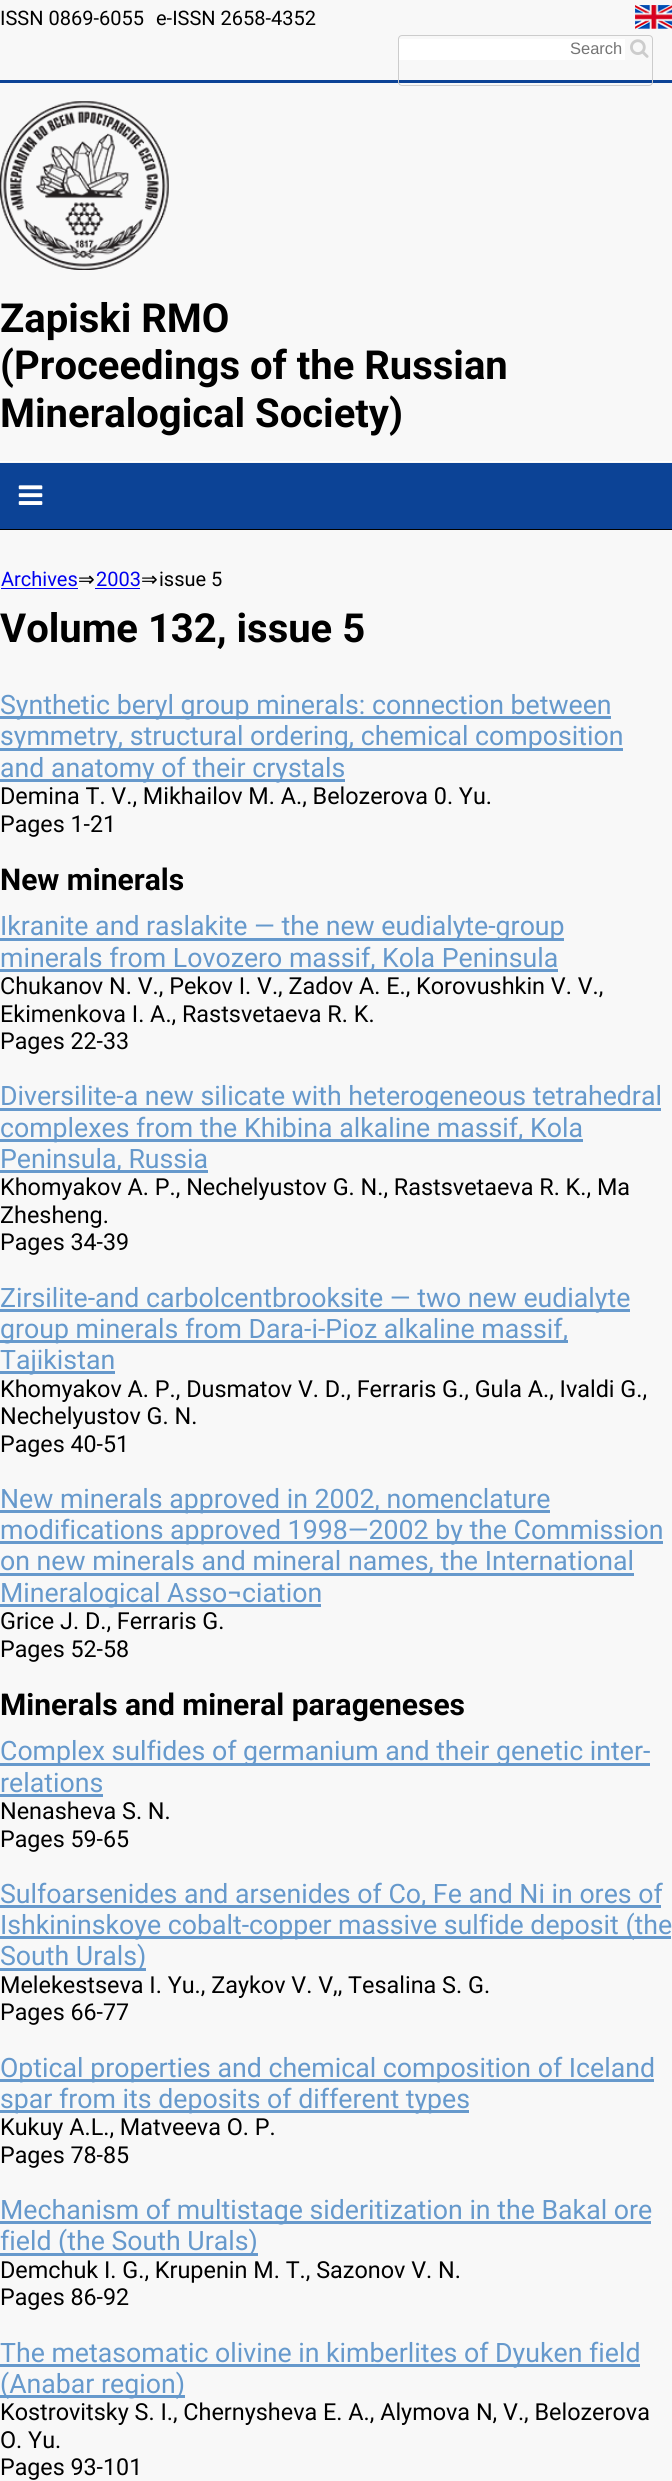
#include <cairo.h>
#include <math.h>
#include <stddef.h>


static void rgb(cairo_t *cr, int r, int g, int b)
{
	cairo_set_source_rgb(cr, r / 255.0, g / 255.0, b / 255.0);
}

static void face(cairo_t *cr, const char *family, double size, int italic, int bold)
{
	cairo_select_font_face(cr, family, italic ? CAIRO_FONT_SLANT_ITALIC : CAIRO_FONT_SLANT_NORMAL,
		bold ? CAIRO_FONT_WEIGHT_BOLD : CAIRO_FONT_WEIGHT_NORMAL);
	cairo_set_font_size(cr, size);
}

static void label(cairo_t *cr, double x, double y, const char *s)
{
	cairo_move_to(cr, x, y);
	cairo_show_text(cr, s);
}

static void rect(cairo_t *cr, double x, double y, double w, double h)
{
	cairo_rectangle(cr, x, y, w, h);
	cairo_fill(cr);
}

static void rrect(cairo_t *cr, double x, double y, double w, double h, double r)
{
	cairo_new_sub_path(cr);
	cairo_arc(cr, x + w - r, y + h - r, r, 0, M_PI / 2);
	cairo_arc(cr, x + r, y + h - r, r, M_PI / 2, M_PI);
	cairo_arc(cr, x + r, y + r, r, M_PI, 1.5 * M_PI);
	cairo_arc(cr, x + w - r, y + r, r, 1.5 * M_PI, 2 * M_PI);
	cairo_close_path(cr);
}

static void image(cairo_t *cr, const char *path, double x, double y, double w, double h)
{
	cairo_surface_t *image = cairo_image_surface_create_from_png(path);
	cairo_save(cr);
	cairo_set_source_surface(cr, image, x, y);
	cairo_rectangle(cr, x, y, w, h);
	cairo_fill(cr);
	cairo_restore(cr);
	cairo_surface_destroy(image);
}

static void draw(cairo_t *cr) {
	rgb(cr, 248, 248, 248);
	cairo_paint(cr);
	face(cr, "Roboto", 20, 0, 0);
	rgb(cr, 0, 0, 0);
	label(cr, 0, 25, "ISSN 0869-6055");
	label(cr, 156, 25, "e-ISSN 2658-4352");
	image(cr, "image0.png", 635, 5, 37, 24);
	rgb(cr, 12, 67, 150);
	rect(cr, 0, 80, 672, 3);
	rrect(cr, 398.5, 35.5, 254, 50, 3.5);
	rgb(cr, 204, 204, 204);
	cairo_set_line_width(cr, 1);
	cairo_stroke(cr);
	rgb(cr, 255, 255, 255);
	rect(cr, 399, 39, 226, 21);
	face(cr, "Liberation Sans", 16.5, 0, 0);
	rgb(cr, 117, 117, 117);
	label(cr, 570, 54, "Search");
	image(cr, "image1.png", 630, 39, 19, 19);
	image(cr, "image2.png", 0, 101, 169, 169);
	face(cr, "Roboto", 40, 0, 1);
	rgb(cr, 0, 0, 0);
	label(cr, 0, 332, "Zapiski RMO");
	label(cr, 0, 379, "(Proceedings of the Russian");
	label(cr, 0, 427, "Mineralogical Society)");
	rgb(cr, 255, 255, 255);
	rect(cr, 0, 461, 672, 1);
	rgb(cr, 0, 0, 0);
	rect(cr, 0, 529, 672, 1);
	rgb(cr, 12, 67, 150);
	rect(cr, 0, 463, 672, 66);
	image(cr, "image3.png", 18, 485, 25, 20);
	face(cr, "Roboto", 20, 0, 0);
	rgb(cr, 0, 0, 238);
	label(cr, 1, 586, "Archives");
	rect(cr, 1, 588, 77, 1);
	face(cr, "DejaVu Sans", 20, 0, 0);
	rgb(cr, 0, 0, 0);
	label(cr, 78, 586, "⇒");
	face(cr, "Roboto", 20, 0, 0);
	rgb(cr, 0, 0, 238);
	label(cr, 96, 586, "2003");
	rect(cr, 95, 588, 45, 1);
	face(cr, "DejaVu Sans", 20, 0, 0);
	rgb(cr, 0, 0, 0);
	label(cr, 141, 586, "⇒");
	face(cr, "Roboto", 20, 0, 0);
	label(cr, 159, 586, "issue 5");
	face(cr, "Roboto", 40, 0, 1);
	label(cr, 0, 642, "Volume 132, issue 5");
	rgb(cr, 102, 153, 204);
	rect(cr, 0, 716, 611, 3);
	face(cr, "Roboto", 26.7, 0, 0);
	label(cr, 0, 714, "Synthetic beryl group minerals: connection between");
	rect(cr, 0, 748, 623, 3);
	label(cr, 0, 745, "symmetry, structural ordering, chemical composition");
	rect(cr, 0, 779, 345, 3);
	label(cr, 0, 777, "and anatomy of their crystals");
	face(cr, "Roboto", 23.4, 0, 0);
	rgb(cr, 0, 0, 0);
	label(cr, 0, 804, "Demina T. V., Mikhailov M. A., Belozerova 0. Yu.");
	face(cr, "Roboto", 23.25, 0, 0);
	label(cr, 0, 832, "Pages 1-21");
	face(cr, "Roboto", 30, 0, 1);
	label(cr, 0, 890, "New minerals");
	rgb(cr, 102, 153, 204);
	rect(cr, 0, 938, 564, 3);
	face(cr, "Roboto", 26.7, 0, 0);
	label(cr, 0, 935, "Ikranite and raslakite — the new eudialyte-group");
	rect(cr, 0, 969, 558, 3);
	label(cr, 0, 967, "minerals from Lovozero massif, Kola Peninsula");
	face(cr, "Roboto", 23.4, 0, 0);
	rgb(cr, 0, 0, 0);
	label(cr, 0, 994, "Chukanov N. V., Pekov I. V., Zadov A. E., Korovushkin V. V.,");
	label(cr, 0, 1022, "Ekimenkova I. A., Rastsvetaeva R. K.");
	face(cr, "Roboto", 23.25, 0, 0);
	label(cr, 0, 1049, "Pages 22-33");
	rgb(cr, 102, 153, 204);
	rect(cr, 0, 1108, 661, 3);
	face(cr, "Roboto", 26.7, 0, 0);
	label(cr, 0, 1105, "Diversilite-a new silicate with heterogeneous tetrahedral");
	rect(cr, 0, 1139, 583, 3);
	label(cr, 0, 1137, "complexes from the Khibina alkaline massif, Kola");
	rect(cr, 0, 1170, 208, 3);
	label(cr, 0, 1168, "Peninsula, Russia");
	face(cr, "Roboto", 23.4, 0, 0);
	rgb(cr, 0, 0, 0);
	label(cr, 0, 1195, "Khomyakov A. P., Nechelyustov G. N., Rastsvetaeva R. K., Ma");
	label(cr, 0, 1223, "Zhesheng.");
	face(cr, "Roboto", 23.25, 0, 0);
	label(cr, 0, 1250, "Pages 34-39");
	rgb(cr, 102, 153, 204);
	rect(cr, 0, 1309, 630, 3);
	face(cr, "Roboto", 26.7, 0, 0);
	label(cr, 0, 1307, "Zirsilite-and carbolcentbrooksite — two new eudialyte");
	rect(cr, 0, 1340, 568, 3);
	label(cr, 0, 1338, "group minerals from Dara-i-Pioz alkaline massif,");
	rect(cr, 0, 1371, 115, 3);
	label(cr, 0, 1369, "Tajikistan");
	face(cr, "Roboto", 23.4, 0, 0);
	rgb(cr, 0, 0, 0);
	label(cr, 0, 1397, "Khomyakov A. P., Dusmatov V. D., Ferraris G., Gula A., Ivaldi G.,");
	label(cr, 0, 1424, "Nechelyustov G. N.");
	face(cr, "Roboto", 23.25, 0, 0);
	label(cr, 0, 1452, "Pages 40-51");
	rgb(cr, 102, 153, 204);
	rect(cr, 0, 1510, 550, 3);
	face(cr, "Roboto", 26.7, 0, 0);
	label(cr, 0, 1508, "New minerals approved in 2002, nomenclature");
	rect(cr, 0, 1541, 663, 3);
	label(cr, 0, 1539, "modifications approved 1998—2002 by the Commission");
	rect(cr, 0, 1573, 634, 3);
	label(cr, 0, 1570, "on new minerals and mineral names, the International");
	rect(cr, 0, 1604, 321, 3);
	label(cr, 0, 1602, "Mineralogical Asso¬ciation");
	face(cr, "Roboto", 23.4, 0, 0);
	rgb(cr, 0, 0, 0);
	label(cr, 0, 1629, "Grice J. D., Ferraris G.");
	face(cr, "Roboto", 23.25, 0, 0);
	label(cr, 0, 1657, "Pages 52-58");
	face(cr, "Roboto", 30, 0, 1);
	label(cr, 0, 1715, "Minerals and mineral parageneses");
	rgb(cr, 102, 153, 204);
	rect(cr, 0, 1763, 650, 3);
	face(cr, "Roboto", 26.7, 0, 0);
	label(cr, 0, 1760, "Complex sulfides of germanium and their genetic inter-");
	label(cr, 0, 1792, "relations");
	rect(cr, 0, 1794, 103, 3);
	face(cr, "Roboto", 23.4, 0, 0);
	rgb(cr, 0, 0, 0);
	label(cr, 0, 1819, "Nenasheva S. N.");
	face(cr, "Roboto", 23.25, 0, 0);
	label(cr, 0, 1847, "Pages 59-65");
	rgb(cr, 102, 153, 204);
	rect(cr, 0, 1905, 661, 3);
	face(cr, "Roboto", 26.7, 0, 0);
	label(cr, 0, 1903, "Sulfoarsenides and arsenides of Co, Fe and Ni in ores of");
	rect(cr, 0, 1936, 671, 3);
	label(cr, 0, 1934, "Ishkininskoye cobalt-copper massive sulfide deposit (the");
	rect(cr, 0, 1968, 146, 3);
	label(cr, 0, 1965, "South Urals)");
	face(cr, "Roboto", 23.4, 0, 0);
	rgb(cr, 0, 0, 0);
	label(cr, 0, 1993, "Melekestseva I. Yu., Zaykov V. V,, Tesalina S. G.");
	face(cr, "Roboto", 23.25, 0, 0);
	label(cr, 0, 2020, "Pages 66-77");
	rgb(cr, 102, 153, 204);
	rect(cr, 0, 2079, 654, 3);
	face(cr, "Roboto", 26.7, 0, 0);
	label(cr, 0, 2077, "Optical properties and chemical composition of Iceland");
	rect(cr, 0, 2110, 469, 3);
	label(cr, 0, 2108, "spar from its deposits of different types");
	face(cr, "Roboto", 23.4, 0, 0);
	rgb(cr, 0, 0, 0);
	label(cr, 0, 2135, "Kukuy A.L., Matveeva O. P.");
	face(cr, "Roboto", 23.25, 0, 0);
	label(cr, 0, 2163, "Pages 78-85");
	rgb(cr, 102, 153, 204);
	rect(cr, 0, 2221, 651, 3);
	face(cr, "Roboto", 26.7, 0, 0);
	label(cr, 0, 2219, "Mechanism of multistage sideritization in the Bakal ore");
	rect(cr, 0, 2253, 258, 3);
	label(cr, 0, 2250, "field (the South Urals)");
	face(cr, "Roboto", 23.4, 0, 0);
	rgb(cr, 0, 0, 0);
	label(cr, 0, 2278, "Demchuk I. G., Krupenin M. T., Sazonov V. N.");
	face(cr, "Roboto", 23.25, 0, 0);
	label(cr, 0, 2305, "Pages 86-92");
	rgb(cr, 102, 153, 204);
	rect(cr, 0, 2364, 640, 3);
	face(cr, "Roboto", 26.7, 0, 0);
	label(cr, 0, 2362, "The metasomatic olivine in kimberlites of Dyuken field");
	rect(cr, 0, 2395, 185, 3);
	label(cr, 0, 2393, "(Anabar region)");
	face(cr, "Roboto", 23.4, 0, 0);
	rgb(cr, 0, 0, 0);
	label(cr, 0, 2420, "Kostrovitsky S. I., Chernysheva E. A., Alymova N, V., Belozerova");
	label(cr, 0, 2448, "O. Yu.");
	face(cr, "Roboto", 23.25, 0, 0);
	label(cr, 0, 2475, "Pages 93-101");
}

int main(void) {
	cairo_surface_t *surface = cairo_image_surface_create(CAIRO_FORMAT_RGB24, 672, 2481);
	cairo_t *cr = cairo_create(surface);
	cairo_font_options_t *options = cairo_font_options_create();
	cairo_font_options_set_hint_metrics(options, CAIRO_HINT_METRICS_OFF);
	cairo_font_options_set_hint_style(options, CAIRO_HINT_STYLE_NONE);
	cairo_set_font_options(cr, options);
	cairo_set_miter_limit(cr, 4);
	draw(cr);
	cairo_surface_write_to_png(surface, "render.png");
	cairo_font_options_destroy(options);
	cairo_destroy(cr);
	cairo_surface_destroy(surface);
	return 0;
}
